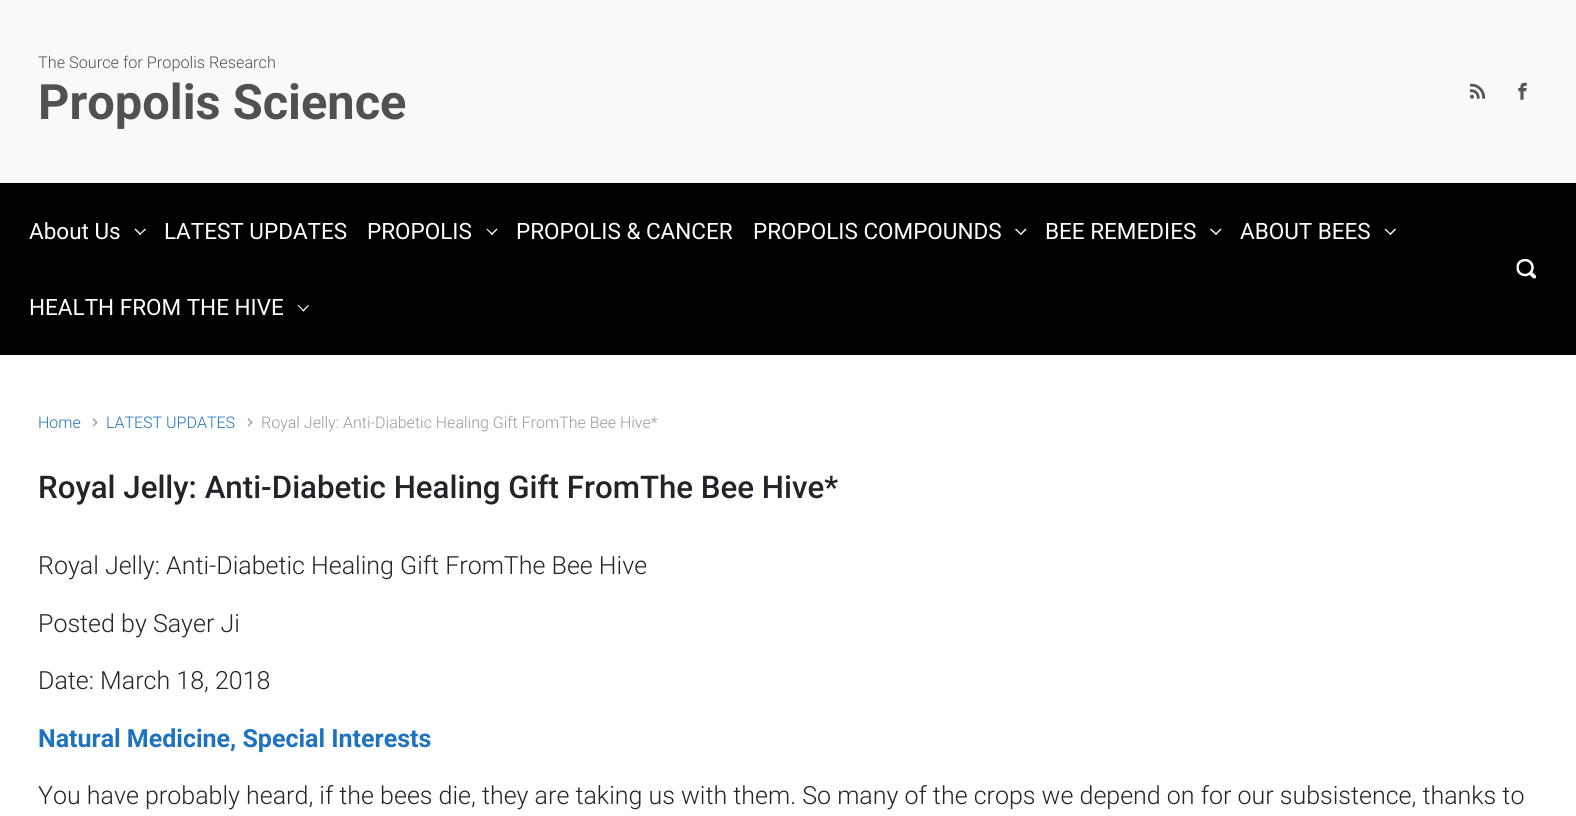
#include <cairo.h>
#include <math.h>
#include <stddef.h>


static void rgb(cairo_t *cr, int r, int g, int b)
{
	cairo_set_source_rgb(cr, r / 255.0, g / 255.0, b / 255.0);
}

static void face(cairo_t *cr, const char *family, double size, int italic, int bold)
{
	cairo_select_font_face(cr, family, italic ? CAIRO_FONT_SLANT_ITALIC : CAIRO_FONT_SLANT_NORMAL,
		bold ? CAIRO_FONT_WEIGHT_BOLD : CAIRO_FONT_WEIGHT_NORMAL);
	cairo_set_font_size(cr, size);
}

static void label(cairo_t *cr, double x, double y, const char *s)
{
	cairo_move_to(cr, x, y);
	cairo_show_text(cr, s);
}

static void rect(cairo_t *cr, double x, double y, double w, double h)
{
	cairo_rectangle(cr, x, y, w, h);
	cairo_fill(cr);
}

static void image(cairo_t *cr, const char *path, double x, double y, double w, double h)
{
	cairo_surface_t *image = cairo_image_surface_create_from_png(path);
	cairo_save(cr);
	cairo_set_source_surface(cr, image, x, y);
	cairo_rectangle(cr, x, y, w, h);
	cairo_fill(cr);
	cairo_restore(cr);
	cairo_surface_destroy(image);
}

static void draw(cairo_t *cr) {
	rgb(cr, 249, 249, 249);
	cairo_paint(cr);
	face(cr, "Roboto Light", 16.25, 0, 0);
	rgb(cr, 81, 81, 81);
	label(cr, 38, 68, "The Source for Propolis Research");
	face(cr, "Roboto", 48.75, 0, 1);
	label(cr, 38, 119, "Propolis Science");
	image(cr, "image0.png", 1469, 83, 17, 16);
	image(cr, "image1.png", 1518, 82, 9, 18);
	rgb(cr, 0, 0, 0);
	rect(cr, 0, 183, 1576, 172);
	face(cr, "Roboto", 22.5, 0, 0);
	rgb(cr, 255, 255, 255);
	label(cr, 29, 239, "About Us");
	cairo_new_path(cr);
	cairo_move_to(cr, 145, 228.5);
	cairo_line_to(cr, 146, 229.5);
	cairo_line_to(cr, 140, 235);
	cairo_line_to(cr, 139.5, 234);
	cairo_close_path(cr);
	cairo_fill(cr);
	cairo_new_path(cr);
	cairo_move_to(cr, 135.5, 228.5);
	cairo_line_to(cr, 141, 234);
	cairo_line_to(cr, 140, 235);
	cairo_line_to(cr, 134.5, 229.5);
	cairo_close_path(cr);
	cairo_fill(cr);
	label(cr, 164, 239, "LATEST UPDATES");
	label(cr, 367, 239, "PROPOLIS");
	cairo_new_path(cr);
	cairo_move_to(cr, 496.5, 228.5);
	cairo_line_to(cr, 497.5, 229.5);
	cairo_line_to(cr, 492, 235);
	cairo_line_to(cr, 491, 234);
	cairo_close_path(cr);
	cairo_fill(cr);
	cairo_new_path(cr);
	cairo_move_to(cr, 487, 228.5);
	cairo_line_to(cr, 493, 234);
	cairo_line_to(cr, 492, 235);
	cairo_line_to(cr, 486.5, 229.5);
	cairo_close_path(cr);
	cairo_fill(cr);
	label(cr, 516, 239, "PROPOLIS & CANCER");
	label(cr, 753, 239, "PROPOLIS COMPOUNDS");
	cairo_new_path(cr);
	cairo_move_to(cr, 1025.5, 228.5);
	cairo_line_to(cr, 1026.5, 229.5);
	cairo_line_to(cr, 1021, 235);
	cairo_line_to(cr, 1020, 234);
	cairo_close_path(cr);
	cairo_fill(cr);
	cairo_new_path(cr);
	cairo_move_to(cr, 1016, 228.5);
	cairo_line_to(cr, 1021.5, 234);
	cairo_line_to(cr, 1021, 235);
	cairo_line_to(cr, 1015, 229.5);
	cairo_close_path(cr);
	cairo_fill(cr);
	label(cr, 1045, 239, "BEE REMEDIES");
	cairo_new_path(cr);
	cairo_move_to(cr, 1220.5, 228.5);
	cairo_line_to(cr, 1221.5, 229.5);
	cairo_line_to(cr, 1216, 235);
	cairo_line_to(cr, 1215, 234);
	cairo_close_path(cr);
	cairo_fill(cr);
	cairo_new_path(cr);
	cairo_move_to(cr, 1211, 228.5);
	cairo_line_to(cr, 1217, 234);
	cairo_line_to(cr, 1216, 235);
	cairo_line_to(cr, 1210, 229.5);
	cairo_close_path(cr);
	cairo_fill(cr);
	label(cr, 1240, 239, "ABOUT BEES");
	cairo_new_path(cr);
	cairo_move_to(cr, 1395, 228.5);
	cairo_line_to(cr, 1396, 229.5);
	cairo_line_to(cr, 1390.5, 235);
	cairo_line_to(cr, 1389.5, 234);
	cairo_close_path(cr);
	cairo_fill(cr);
	cairo_new_path(cr);
	cairo_move_to(cr, 1385.5, 228.5);
	cairo_line_to(cr, 1391, 234);
	cairo_line_to(cr, 1390.5, 235);
	cairo_line_to(cr, 1384.5, 229.5);
	cairo_close_path(cr);
	cairo_fill(cr);
	label(cr, 29, 315, "HEALTH FROM THE HIVE");
	cairo_new_path(cr);
	cairo_move_to(cr, 308, 305);
	cairo_line_to(cr, 309, 305.5);
	cairo_line_to(cr, 303.5, 311.5);
	cairo_line_to(cr, 302.5, 310.5);
	cairo_close_path(cr);
	cairo_fill(cr);
	cairo_new_path(cr);
	cairo_move_to(cr, 298.5, 305);
	cairo_line_to(cr, 304, 310.5);
	cairo_line_to(cr, 303.5, 311.5);
	cairo_line_to(cr, 297.5, 305.5);
	cairo_close_path(cr);
	cairo_fill(cr);
	image(cr, "image2.png", 1516, 259, 20, 20);
	rect(cr, 0, 355, 1576, 461);
	face(cr, "Roboto Light", 16, 0, 0);
	rgb(cr, 30, 115, 190);
	label(cr, 38, 428, "Home");
	rgb(cr, 153, 153, 153);
	cairo_new_path(cr);
	cairo_move_to(cr, 92.5, 419);
	cairo_line_to(cr, 93.5, 418);
	cairo_line_to(cr, 97.5, 422.5);
	cairo_line_to(cr, 96.5, 423.5);
	cairo_close_path(cr);
	cairo_fill(cr);
	cairo_new_path(cr);
	cairo_move_to(cr, 92.5, 426);
	cairo_line_to(cr, 96.5, 421.5);
	cairo_line_to(cr, 97.5, 422.5);
	cairo_line_to(cr, 93.5, 426.5);
	cairo_close_path(cr);
	cairo_fill(cr);
	rgb(cr, 30, 115, 190);
	label(cr, 106, 428, "LATEST UPDATES");
	rgb(cr, 153, 153, 153);
	cairo_new_path(cr);
	cairo_move_to(cr, 247.5, 419);
	cairo_line_to(cr, 248.5, 418);
	cairo_line_to(cr, 252.5, 422.5);
	cairo_line_to(cr, 251.5, 423.5);
	cairo_close_path(cr);
	cairo_fill(cr);
	cairo_new_path(cr);
	cairo_move_to(cr, 247.5, 426);
	cairo_line_to(cr, 251.5, 421.5);
	cairo_line_to(cr, 252.5, 422.5);
	cairo_line_to(cr, 248.5, 426.5);
	cairo_close_path(cr);
	cairo_fill(cr);
	label(cr, 261, 428, "Royal Jelly: Anti-Diabetic Healing Gift FromThe Bee Hive*");
	face(cr, "Roboto Medium", 31.25, 0, 0);
	rgb(cr, 33, 37, 41);
	label(cr, 38, 498, "Royal Jelly: Anti-Diabetic Healing Gift FromThe Bee Hive*");
	face(cr, "Roboto Light", 25, 0, 0);
	label(cr, 38, 574, "Royal Jelly: Anti-Diabetic Healing Gift FromThe Bee Hive");
	label(cr, 38, 632, "Posted by Sayer Ji");
	label(cr, 38, 689, "Date: March 18, 2018");
	face(cr, "Roboto", 25, 0, 1);
	rgb(cr, 30, 115, 190);
	label(cr, 38, 747, "Natural Medicine, Special Interests");
	face(cr, "Roboto Light", 25, 0, 0);
	rgb(cr, 33, 37, 41);
	label(cr, 38, 804, "You have probably heard, if the bees die, they are taking us with them. So many of the crops we depend on for our subsistence, thanks to");
}

int main(void) {
	cairo_surface_t *surface = cairo_image_surface_create(CAIRO_FORMAT_RGB24, 1576, 816);
	cairo_t *cr = cairo_create(surface);
	cairo_font_options_t *options = cairo_font_options_create();
	cairo_font_options_set_hint_metrics(options, CAIRO_HINT_METRICS_OFF);
	cairo_font_options_set_hint_style(options, CAIRO_HINT_STYLE_NONE);
	cairo_set_font_options(cr, options);
	cairo_set_miter_limit(cr, 4);
	draw(cr);
	cairo_surface_write_to_png(surface, "render.png");
	cairo_font_options_destroy(options);
	cairo_destroy(cr);
	cairo_surface_destroy(surface);
	return 0;
}
